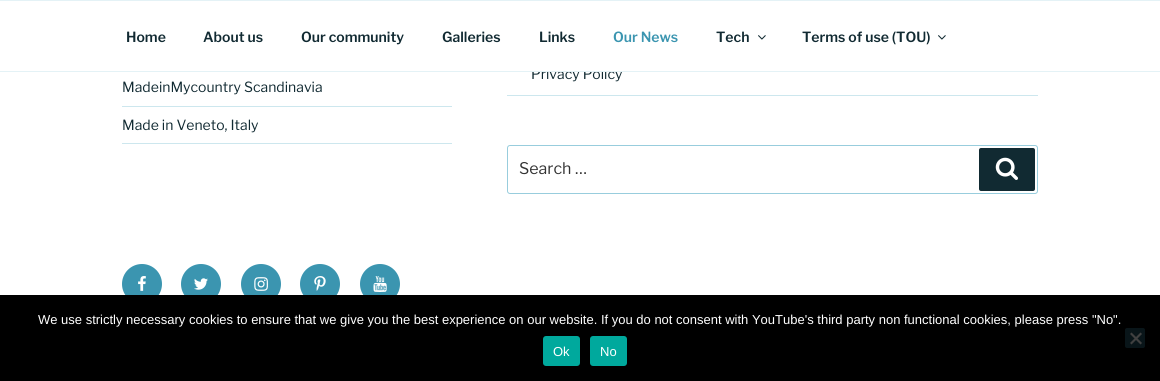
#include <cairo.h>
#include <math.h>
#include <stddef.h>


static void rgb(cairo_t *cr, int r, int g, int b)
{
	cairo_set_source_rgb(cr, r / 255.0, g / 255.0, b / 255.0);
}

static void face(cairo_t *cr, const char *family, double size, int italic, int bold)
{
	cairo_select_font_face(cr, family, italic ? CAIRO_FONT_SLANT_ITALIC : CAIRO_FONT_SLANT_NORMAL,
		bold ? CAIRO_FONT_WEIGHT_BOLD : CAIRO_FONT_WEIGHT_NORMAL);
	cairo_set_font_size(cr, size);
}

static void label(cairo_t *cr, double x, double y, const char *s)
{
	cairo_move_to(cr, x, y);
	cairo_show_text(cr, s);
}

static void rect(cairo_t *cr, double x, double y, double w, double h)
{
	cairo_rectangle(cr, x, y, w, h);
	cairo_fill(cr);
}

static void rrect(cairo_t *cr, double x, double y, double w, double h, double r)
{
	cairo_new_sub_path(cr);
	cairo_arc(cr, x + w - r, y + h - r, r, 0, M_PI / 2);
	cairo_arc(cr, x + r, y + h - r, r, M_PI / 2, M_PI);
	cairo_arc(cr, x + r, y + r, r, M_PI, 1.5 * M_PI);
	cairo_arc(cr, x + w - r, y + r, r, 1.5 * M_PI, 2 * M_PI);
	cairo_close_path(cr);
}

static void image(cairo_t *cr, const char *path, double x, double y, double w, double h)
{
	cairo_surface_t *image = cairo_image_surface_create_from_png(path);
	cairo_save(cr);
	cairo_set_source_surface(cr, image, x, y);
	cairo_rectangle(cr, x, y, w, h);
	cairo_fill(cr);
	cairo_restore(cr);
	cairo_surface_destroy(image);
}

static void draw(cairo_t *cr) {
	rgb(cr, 255, 255, 255);
	cairo_paint(cr);
	face(cr, "Libre Franklin Thin", 14, 0, 0);
	rgb(cr, 17, 42, 50);
	label(cr, 531, 79, "Privacy Policy");
	rgb(cr, 255, 255, 255);
	rect(cr, 532, 68, 75, 3);
	rgb(cr, 228, 242, 246);
	rect(cr, 0, 0, 1160, 1);
	rect(cr, 0, 71, 1160, 1);
	face(cr, "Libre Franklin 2 Thin", 14, 0, 0);
	rgb(cr, 17, 42, 50);
	label(cr, 126, 42, "Home");
	label(cr, 203, 42, "About us");
	label(cr, 301, 42, "Our community");
	label(cr, 442, 42, "Galleries");
	label(cr, 539, 42, "Links");
	rgb(cr, 59, 149, 176);
	label(cr, 613, 42, "Our News");
	rgb(cr, 17, 42, 50);
	label(cr, 716, 42, "Tech");
	image(cr, "image0.png", 758, 35, 8, 5);
	label(cr, 802, 42, "Terms of use (TOU)");
	image(cr, "image0.png", 938, 35, 8, 5);
	rgb(cr, 205, 231, 238);
	rect(cr, 122, 106, 330, 1);
	face(cr, "Libre Franklin Thin", 14, 0, 0);
	rgb(cr, 17, 42, 50);
	label(cr, 122, 92, "MadeinMycountry Scandinavia");
	rgb(cr, 205, 231, 238);
	rect(cr, 122, 143, 330, 1);
	rgb(cr, 17, 42, 50);
	label(cr, 122, 130, "Made in Veneto, Italy");
	rgb(cr, 205, 231, 238);
	rect(cr, 507, 95, 531, 1);
	rrect(cr, 507.5, 145.5, 530, 48, 2.5);
	rgb(cr, 152, 205, 221);
	cairo_set_line_width(cr, 1);
	cairo_stroke(cr);
	face(cr, "Libre Franklin Thin", 16, 0, 0);
	rgb(cr, 51, 51, 51);
	label(cr, 519, 174, "Search …");
	rgb(cr, 17, 42, 50);
	rrect(cr, 979, 148, 56, 43, 2);
	cairo_fill(cr);
	image(cr, "image1.png", 995, 157, 23, 23);
	rgb(cr, 59, 149, 176);
	cairo_arc(cr, 142, 284, 20, 0, 2 * M_PI);
	cairo_fill(cr);
	image(cr, "image2.png", 138, 276, 8, 15);
	cairo_arc(cr, 201, 284, 20, 0, 2 * M_PI);
	cairo_fill(cr);
	image(cr, "image3.png", 194, 278, 14, 12);
	cairo_arc(cr, 261, 284, 20, 0, 2 * M_PI);
	cairo_fill(cr);
	image(cr, "image4.png", 254, 277, 14, 14);
	cairo_arc(cr, 320, 284, 20, 0, 2 * M_PI);
	cairo_fill(cr);
	image(cr, "image5.png", 314, 276, 12, 15);
	cairo_arc(cr, 380, 284, 20, 0, 2 * M_PI);
	cairo_fill(cr);
	image(cr, "image6.png", 373, 276, 14, 16);
	rgb(cr, 0, 0, 0);
	rect(cr, 0, 295, 1160, 86);
	face(cr, "Liberation Sans", 13, 0, 0);
	rgb(cr, 255, 255, 255);
	label(cr, 38, 324, "We use strictly necessary cookies to ensure that we give you the best experience on our website. If you do not consent with YouTube's third party non functional cookies, please press \"No\".");
	rgb(cr, 9, 21, 25);
	rrect(cr, 1125, 328, 20, 20, 2);
	cairo_fill(cr);
	rgb(cr, 64, 64, 64);
	cairo_new_path(cr);
	cairo_move_to(cr, 1140.5, 332.5);
	cairo_line_to(cr, 1142, 334);
	cairo_line_to(cr, 1131.5, 344.5);
	cairo_line_to(cr, 1130, 343);
	cairo_close_path(cr);
	cairo_fill(cr);
	cairo_new_path(cr);
	cairo_move_to(cr, 1130, 334);
	cairo_line_to(cr, 1131.5, 332.5);
	cairo_line_to(cr, 1142, 343);
	cairo_line_to(cr, 1140.5, 344.5);
	cairo_close_path(cr);
	cairo_fill(cr);
	rgb(cr, 0, 169, 157);
	rrect(cr, 543, 336, 37, 30, 3);
	cairo_fill(cr);
	rgb(cr, 255, 255, 255);
	label(cr, 553, 356, "Ok");
	rgb(cr, 0, 169, 157);
	rrect(cr, 590, 336, 37, 30, 3);
	cairo_fill(cr);
	rgb(cr, 255, 255, 255);
	label(cr, 600, 356, "No");
}

int main(void) {
	cairo_surface_t *surface = cairo_image_surface_create(CAIRO_FORMAT_RGB24, 1160, 381);
	cairo_t *cr = cairo_create(surface);
	cairo_font_options_t *options = cairo_font_options_create();
	cairo_font_options_set_hint_metrics(options, CAIRO_HINT_METRICS_OFF);
	cairo_font_options_set_hint_style(options, CAIRO_HINT_STYLE_NONE);
	cairo_set_font_options(cr, options);
	cairo_set_miter_limit(cr, 4);
	draw(cr);
	cairo_surface_write_to_png(surface, "render.png");
	cairo_font_options_destroy(options);
	cairo_destroy(cr);
	cairo_surface_destroy(surface);
	return 0;
}
